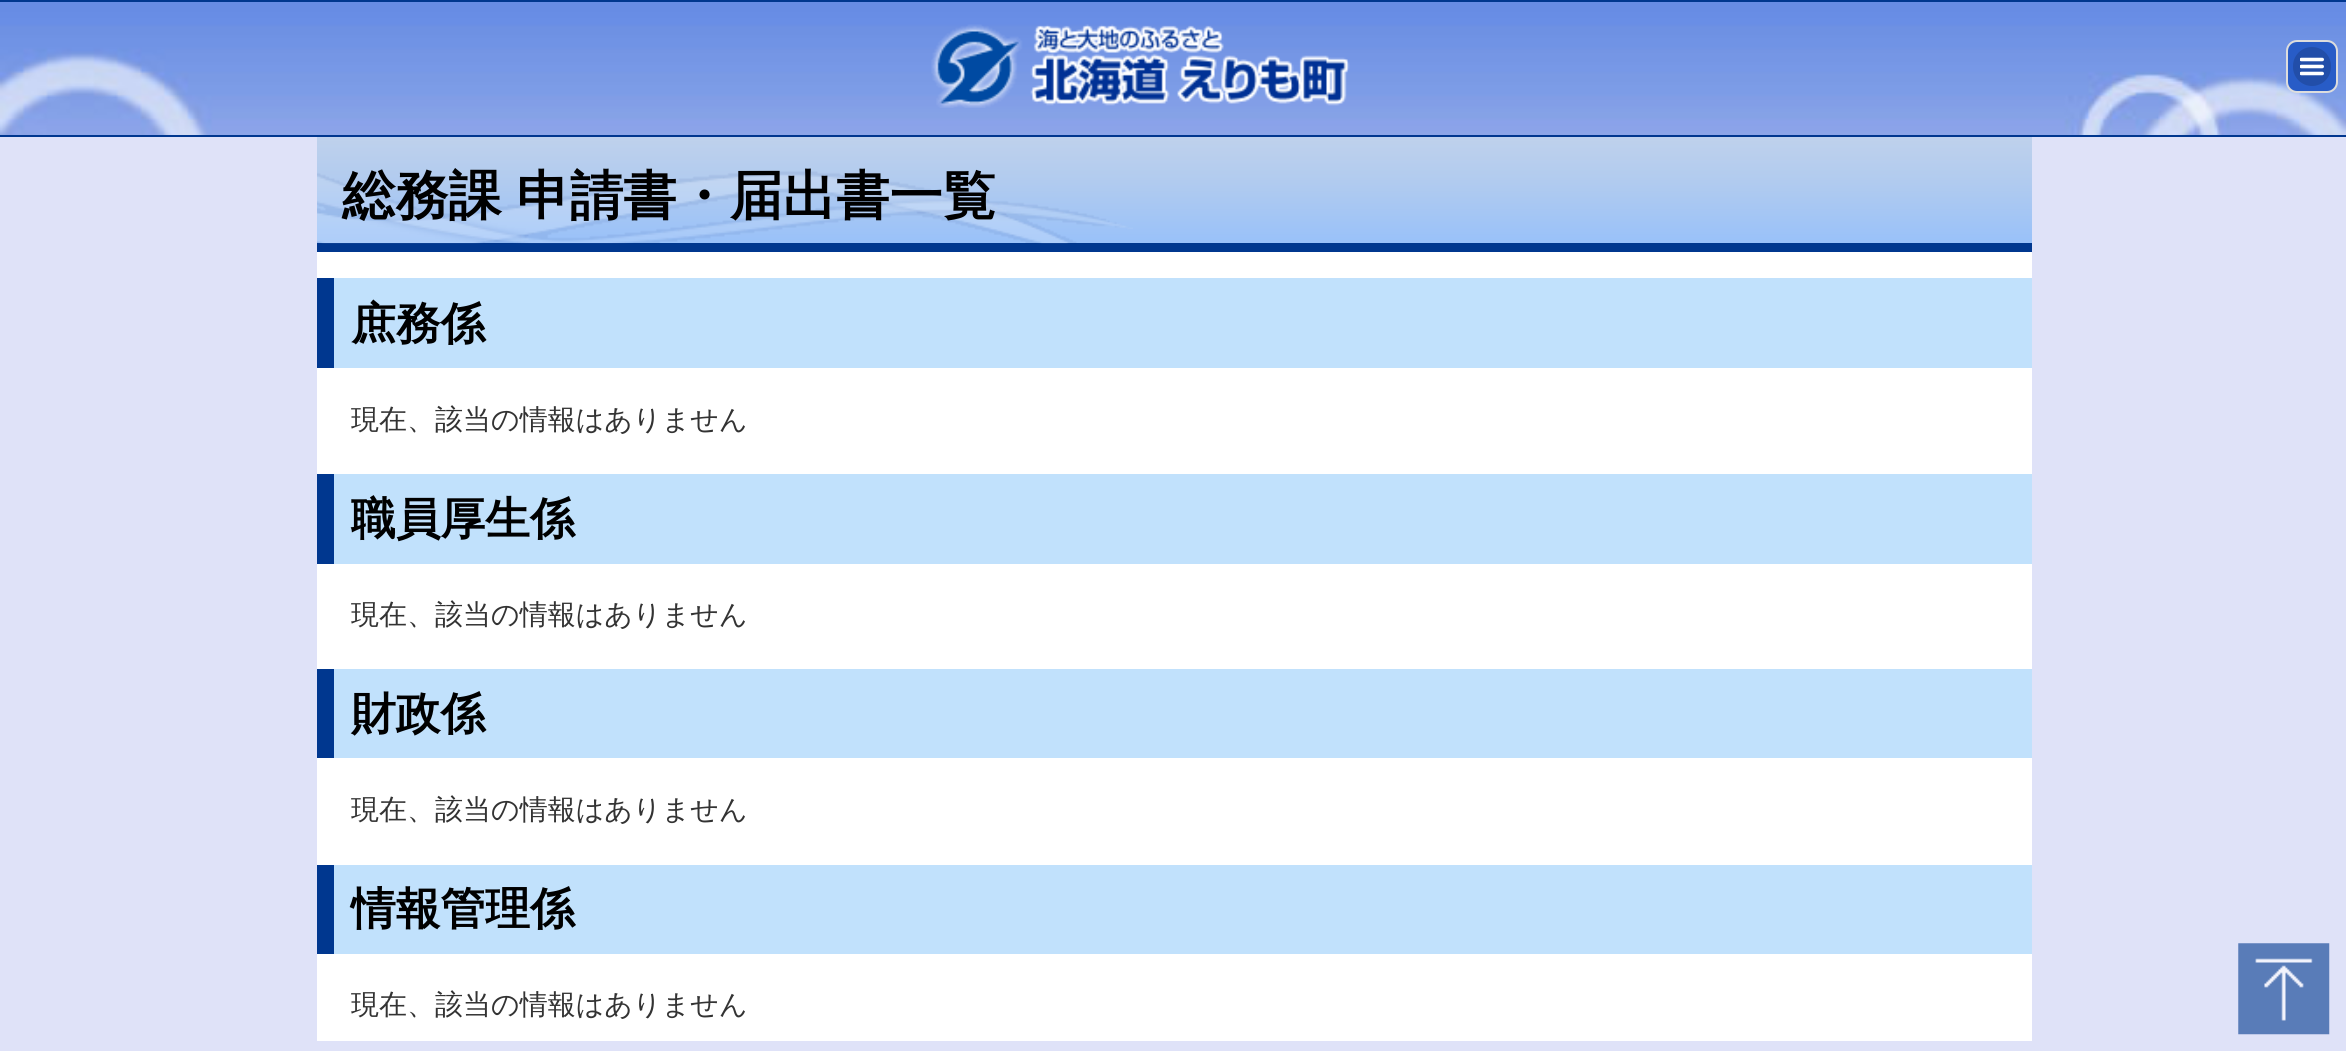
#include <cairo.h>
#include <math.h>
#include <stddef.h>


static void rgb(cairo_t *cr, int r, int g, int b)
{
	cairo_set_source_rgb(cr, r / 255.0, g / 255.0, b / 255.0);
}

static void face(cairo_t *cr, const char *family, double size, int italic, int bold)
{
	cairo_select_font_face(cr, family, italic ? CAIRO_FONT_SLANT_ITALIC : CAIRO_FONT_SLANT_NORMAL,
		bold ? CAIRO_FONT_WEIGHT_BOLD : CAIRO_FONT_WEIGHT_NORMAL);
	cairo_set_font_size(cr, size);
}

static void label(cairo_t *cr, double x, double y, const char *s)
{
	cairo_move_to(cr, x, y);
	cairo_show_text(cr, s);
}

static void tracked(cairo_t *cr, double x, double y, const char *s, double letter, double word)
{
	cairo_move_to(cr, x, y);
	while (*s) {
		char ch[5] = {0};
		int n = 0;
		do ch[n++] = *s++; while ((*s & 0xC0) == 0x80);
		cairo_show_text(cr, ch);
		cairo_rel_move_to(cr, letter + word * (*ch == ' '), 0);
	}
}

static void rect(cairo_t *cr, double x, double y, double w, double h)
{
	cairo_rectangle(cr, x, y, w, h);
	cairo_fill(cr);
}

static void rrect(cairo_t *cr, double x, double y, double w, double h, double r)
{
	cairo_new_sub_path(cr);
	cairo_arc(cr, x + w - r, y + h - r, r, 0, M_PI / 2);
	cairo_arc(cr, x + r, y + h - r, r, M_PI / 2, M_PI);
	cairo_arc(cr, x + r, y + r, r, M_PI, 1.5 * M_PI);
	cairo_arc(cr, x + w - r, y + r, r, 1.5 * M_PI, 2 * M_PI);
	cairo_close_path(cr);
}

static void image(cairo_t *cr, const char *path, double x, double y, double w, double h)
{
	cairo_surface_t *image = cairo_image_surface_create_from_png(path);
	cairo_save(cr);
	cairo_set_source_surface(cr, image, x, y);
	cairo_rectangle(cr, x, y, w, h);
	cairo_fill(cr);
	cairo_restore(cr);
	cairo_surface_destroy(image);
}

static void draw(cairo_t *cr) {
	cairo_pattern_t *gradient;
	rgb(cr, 223, 226, 248);
	cairo_paint(cr);
	image(cr, "image0.png", 0, 2, 2346, 133);
	rgb(cr, 0, 55, 143);
	rect(cr, 0, 0, 2346, 2);
	rect(cr, 0, 135, 2346, 2);
	image(cr, "image1.png", 931, 24, 419, 84);
	rgb(cr, 40, 92, 199);
	rrect(cr, 2287, 41, 50, 51, 10);
	cairo_fill_preserve(cr);
	rgb(cr, 221, 221, 221);
	cairo_stroke(cr);
	rgb(cr, 34, 78, 169);
	rrect(cr, 2293, 47, 38, 39, 19);
	cairo_fill(cr);
	image(cr, "image2.png", 2300, 57, 24, 19);
	rgb(cr, 255, 255, 255);
	rect(cr, 317, 252, 1715, 789);
	gradient = cairo_pattern_create_linear(1174, 136, 1174, 243);
	cairo_pattern_add_color_stop_rgba(gradient, 0, 0.749, 0.82, 0.925, 1);
	cairo_pattern_add_color_stop_rgba(gradient, 0.43, 0.694, 0.796, 0.937, 1);
	cairo_pattern_add_color_stop_rgba(gradient, 1, 0.6, 0.757, 0.976, 1);
	cairo_set_source(cr, gradient);
	cairo_pattern_destroy(gradient);
	rect(cr, 317, 137, 1715, 106);
	rgb(cr, 0, 55, 143);
	rect(cr, 317, 243, 1715, 9);
	image(cr, "image3.png", 317, 171, 816, 73);
	face(cr, "WenQuanYi Zen Hei", 53.25, 0, 1);
	rgb(cr, 0, 0, 0);
	tracked(cr, 342, 214, "総務課 申請書・届出書一覧", 0, -1);
	rgb(cr, 193, 225, 252);
	rect(cr, 334, 278, 1698, 90);
	rgb(cr, 0, 55, 143);
	rect(cr, 317, 278, 17, 90);
	face(cr, "WenQuanYi Zen Hei", 44.75, 0, 1);
	rgb(cr, 0, 0, 0);
	label(cr, 351, 339, "庶務係");
	face(cr, "WenQuanYi Zen Hei Medium", 28, 0, 0);
	rgb(cr, 51, 51, 51);
	label(cr, 351, 429, "現在、該当の情報はありません");
	rgb(cr, 193, 225, 252);
	rect(cr, 334, 474, 1698, 90);
	rgb(cr, 0, 55, 143);
	rect(cr, 317, 474, 17, 90);
	face(cr, "WenQuanYi Zen Hei", 44.75, 0, 1);
	rgb(cr, 0, 0, 0);
	label(cr, 351, 534, "職員厚生係");
	face(cr, "WenQuanYi Zen Hei Medium", 28, 0, 0);
	rgb(cr, 51, 51, 51);
	label(cr, 351, 624, "現在、該当の情報はありません");
	rgb(cr, 193, 225, 252);
	rect(cr, 334, 669, 1698, 89);
	rgb(cr, 0, 55, 143);
	rect(cr, 317, 669, 17, 89);
	face(cr, "WenQuanYi Zen Hei", 44.75, 0, 1);
	rgb(cr, 0, 0, 0);
	label(cr, 351, 729, "財政係");
	face(cr, "WenQuanYi Zen Hei Medium", 28, 0, 0);
	rgb(cr, 51, 51, 51);
	label(cr, 351, 819, "現在、該当の情報はありません");
	rgb(cr, 193, 225, 252);
	rect(cr, 334, 865, 1698, 89);
	rgb(cr, 0, 55, 143);
	rect(cr, 317, 865, 17, 89);
	face(cr, "WenQuanYi Zen Hei", 44.75, 0, 1);
	rgb(cr, 0, 0, 0);
	label(cr, 351, 924, "情報管理係");
	face(cr, "WenQuanYi Zen Hei Medium", 28, 0, 0);
	rgb(cr, 51, 51, 51);
	label(cr, 351, 1014, "現在、該当の情報はありません");
	image(cr, "image4.png", 2238, 943, 92, 92);
}

int main(void) {
	cairo_surface_t *surface = cairo_image_surface_create(CAIRO_FORMAT_RGB24, 2346, 1051);
	cairo_t *cr = cairo_create(surface);
	cairo_font_options_t *options = cairo_font_options_create();
	cairo_font_options_set_hint_metrics(options, CAIRO_HINT_METRICS_OFF);
	cairo_font_options_set_hint_style(options, CAIRO_HINT_STYLE_NONE);
	cairo_set_font_options(cr, options);
	cairo_set_miter_limit(cr, 4);
	draw(cr);
	cairo_surface_write_to_png(surface, "render.png");
	cairo_font_options_destroy(options);
	cairo_destroy(cr);
	cairo_surface_destroy(surface);
	return 0;
}
